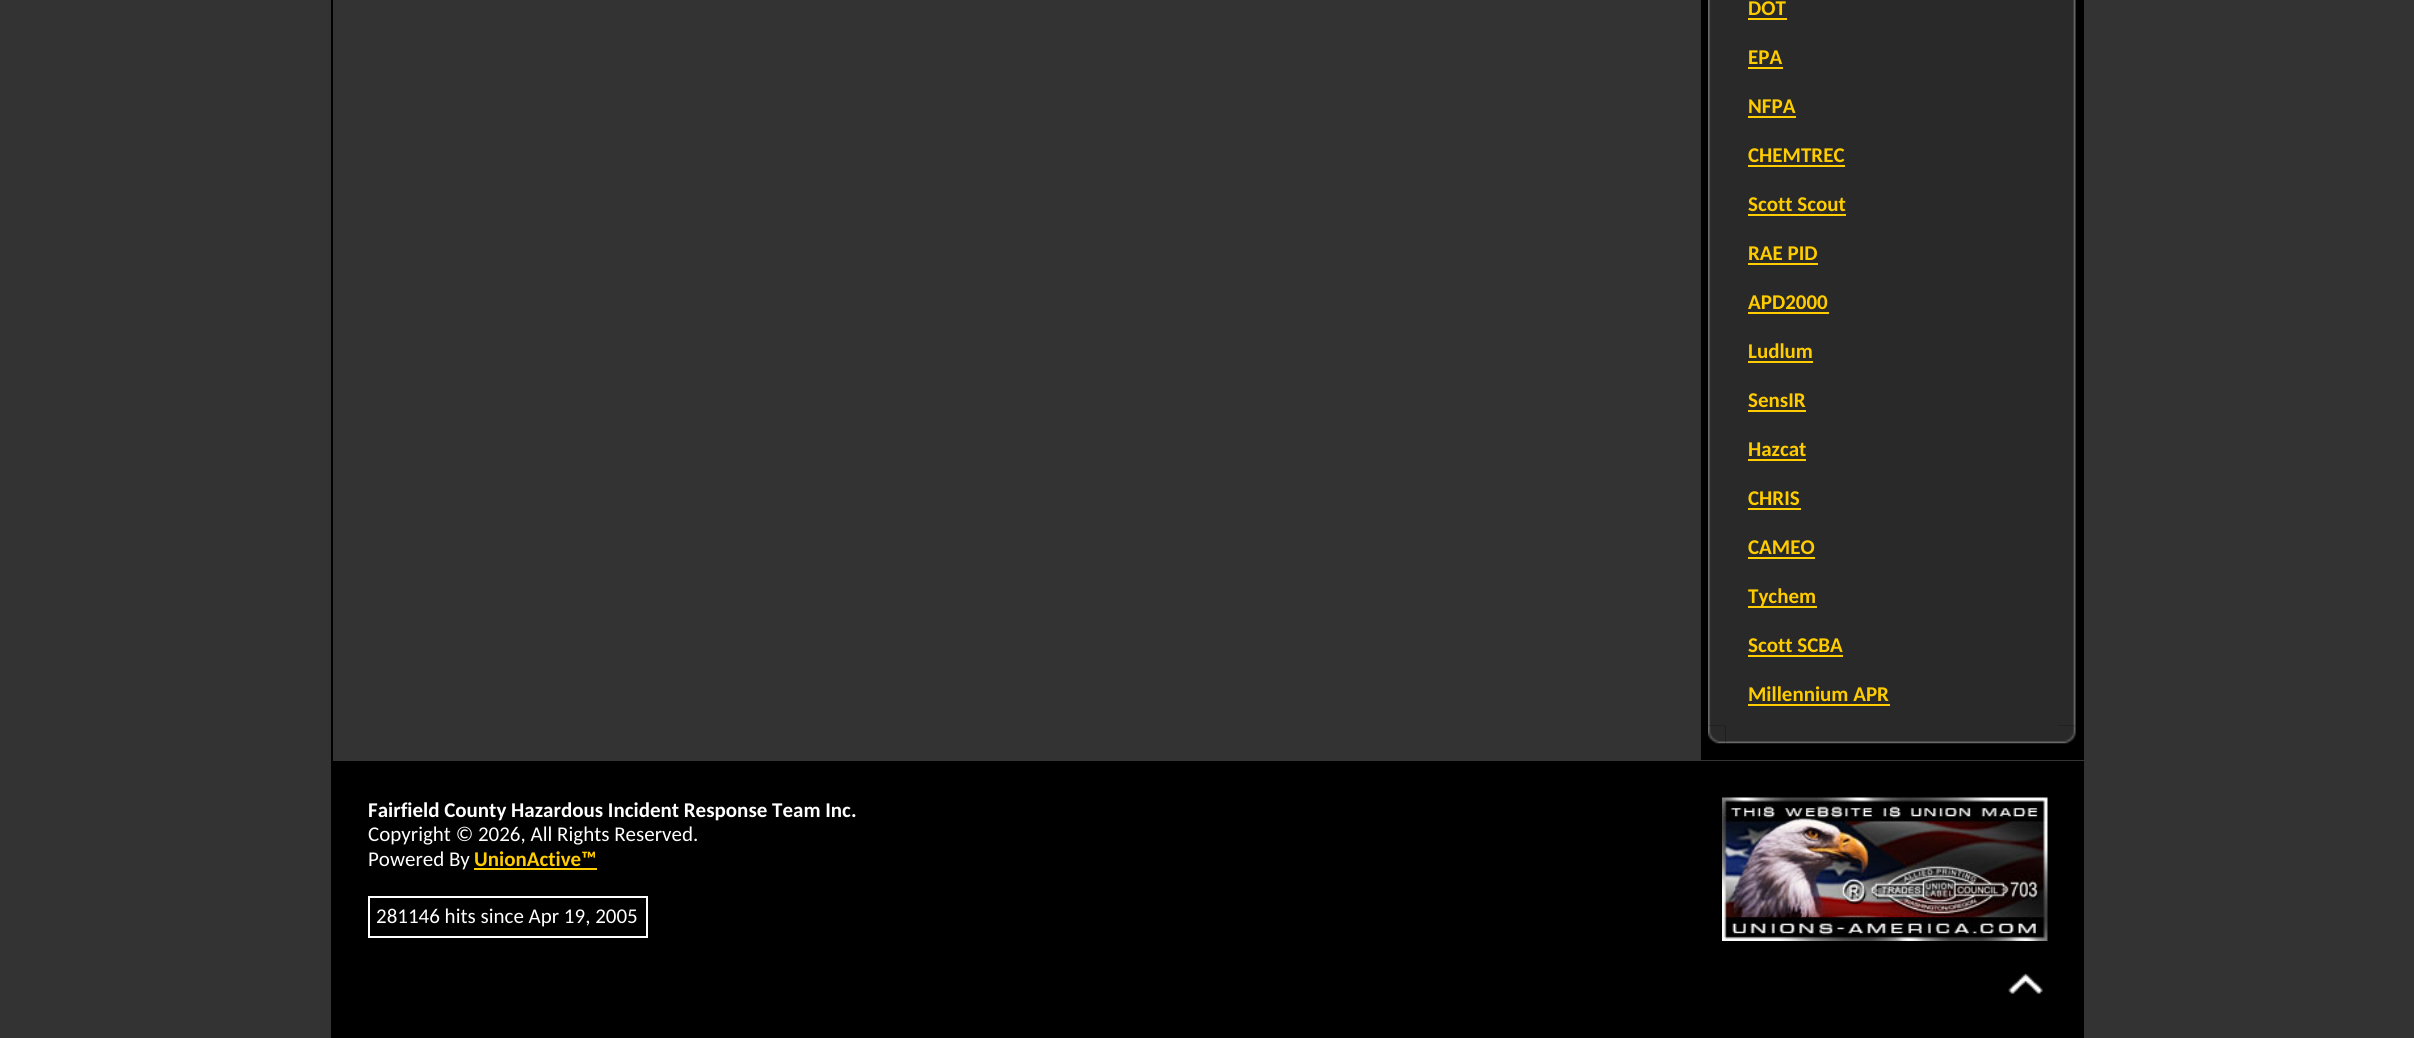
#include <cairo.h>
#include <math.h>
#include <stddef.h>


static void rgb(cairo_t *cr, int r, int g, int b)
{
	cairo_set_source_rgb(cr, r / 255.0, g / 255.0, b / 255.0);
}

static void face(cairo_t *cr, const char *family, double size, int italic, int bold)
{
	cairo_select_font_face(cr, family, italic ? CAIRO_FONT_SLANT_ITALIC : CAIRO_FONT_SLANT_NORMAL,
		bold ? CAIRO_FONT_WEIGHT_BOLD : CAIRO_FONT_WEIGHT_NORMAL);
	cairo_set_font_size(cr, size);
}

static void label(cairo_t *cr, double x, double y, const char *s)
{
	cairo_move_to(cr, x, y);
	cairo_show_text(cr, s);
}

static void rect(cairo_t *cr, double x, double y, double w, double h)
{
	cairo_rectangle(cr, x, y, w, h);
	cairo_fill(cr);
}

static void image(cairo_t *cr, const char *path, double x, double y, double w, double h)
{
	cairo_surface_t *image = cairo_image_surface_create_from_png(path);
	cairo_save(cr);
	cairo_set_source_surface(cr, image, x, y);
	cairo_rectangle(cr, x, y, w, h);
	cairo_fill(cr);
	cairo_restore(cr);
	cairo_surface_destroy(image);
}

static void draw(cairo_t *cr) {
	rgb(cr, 51, 51, 51);
	cairo_paint(cr);
	rgb(cr, 0, 0, 0);
	rect(cr, 2083, 0, 1, 761);
	rgb(cr, 51, 51, 51);
	rect(cr, 2083, 760, 1, 1);
	rgb(cr, 0, 0, 0);
	rect(cr, 331, 0, 2, 761);
	rect(cr, 1701, 0, 382, 760);
	image(cr, "image0.png", 1708, 0, 17, 726);
	rgb(cr, 41, 41, 41);
	rect(cr, 1725, 0, 333, 726);
	face(cr, "Carlito", 21, 0, 1);
	rgb(cr, 255, 204, 0);
	label(cr, 1748, 15, "DOT");
	rect(cr, 1748, 18, 39, 2);
	label(cr, 1748, 64, "EPA");
	rect(cr, 1748, 67, 35, 2);
	label(cr, 1748, 113, "NFPA");
	rect(cr, 1748, 116, 48, 2);
	label(cr, 1748, 162, "CHEMTREC");
	rect(cr, 1748, 165, 97, 2);
	label(cr, 1748, 211, "Scott Scout");
	rect(cr, 1748, 214, 98, 2);
	label(cr, 1748, 260, "RAE PID");
	rect(cr, 1748, 263, 70, 2);
	label(cr, 1748, 309, "APD2000");
	rect(cr, 1748, 312, 81, 2);
	label(cr, 1748, 358, "Ludlum");
	rect(cr, 1748, 361, 65, 2);
	label(cr, 1748, 407, "SensIR");
	rect(cr, 1748, 410, 58, 2);
	label(cr, 1748, 456, "Hazcat");
	rect(cr, 1748, 459, 58, 2);
	label(cr, 1748, 505, "CHRIS");
	rect(cr, 1748, 508, 53, 2);
	label(cr, 1748, 554, "CAMEO");
	rect(cr, 1748, 557, 67, 2);
	rect(cr, 1748, 606, 69, 2);
	label(cr, 1748, 603, "Tychem");
	label(cr, 1748, 652, "Scott SCBA");
	rect(cr, 1748, 655, 95, 2);
	label(cr, 1748, 701, "Millennium APR");
	rect(cr, 1748, 704, 142, 2);
	image(cr, "image1.png", 2058, 0, 18, 726);
	image(cr, "image2.png", 1708, 725, 18, 19);
	image(cr, "image3.png", 1725, 726, 333, 18);
	image(cr, "image4.png", 2058, 725, 18, 19);
	rgb(cr, 0, 0, 0);
	rect(cr, 331, 761, 1753, 2);
	rect(cr, 2083, 761, 1, 277);
	rect(cr, 331, 761, 2, 277);
	rect(cr, 333, 763, 1750, 275);
	rgb(cr, 255, 255, 255);
	label(cr, 368, 817, "Fairfield County Hazardous Incident Response Team Inc.");
	face(cr, "Carlito", 21, 0, 0);
	label(cr, 368, 841, "Copyright © 2026, All Rights Reserved.");
	label(cr, 368, 866, "Powered By");
	face(cr, "Carlito", 21, 0, 1);
	rgb(cr, 255, 204, 0);
	label(cr, 474, 866, "UnionActive™");
	rect(cr, 474, 868, 123, 2);
	cairo_rectangle(cr, 369, 897, 278, 40);
	rgb(cr, 255, 255, 255);
	cairo_stroke(cr);
	face(cr, "Carlito", 21, 0, 0);
	label(cr, 376, 923, "281146 hits since Apr 19, 2005");
	image(cr, "image5.png", 1722, 797, 326, 144);
	image(cr, "image6.png", 2008, 973, 35, 21);
}

int main(void) {
	cairo_surface_t *surface = cairo_image_surface_create(CAIRO_FORMAT_RGB24, 2414, 1038);
	cairo_t *cr = cairo_create(surface);
	cairo_font_options_t *options = cairo_font_options_create();
	cairo_font_options_set_hint_metrics(options, CAIRO_HINT_METRICS_OFF);
	cairo_font_options_set_hint_style(options, CAIRO_HINT_STYLE_NONE);
	cairo_set_font_options(cr, options);
	cairo_set_miter_limit(cr, 4);
	draw(cr);
	cairo_surface_write_to_png(surface, "render.png");
	cairo_font_options_destroy(options);
	cairo_destroy(cr);
	cairo_surface_destroy(surface);
	return 0;
}
